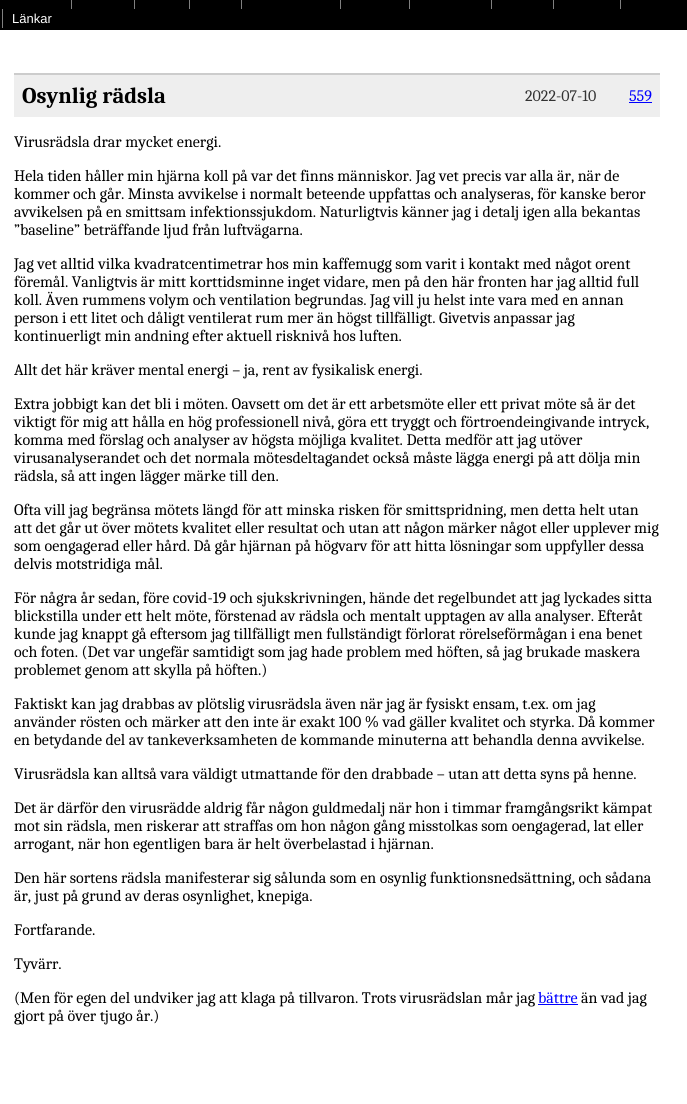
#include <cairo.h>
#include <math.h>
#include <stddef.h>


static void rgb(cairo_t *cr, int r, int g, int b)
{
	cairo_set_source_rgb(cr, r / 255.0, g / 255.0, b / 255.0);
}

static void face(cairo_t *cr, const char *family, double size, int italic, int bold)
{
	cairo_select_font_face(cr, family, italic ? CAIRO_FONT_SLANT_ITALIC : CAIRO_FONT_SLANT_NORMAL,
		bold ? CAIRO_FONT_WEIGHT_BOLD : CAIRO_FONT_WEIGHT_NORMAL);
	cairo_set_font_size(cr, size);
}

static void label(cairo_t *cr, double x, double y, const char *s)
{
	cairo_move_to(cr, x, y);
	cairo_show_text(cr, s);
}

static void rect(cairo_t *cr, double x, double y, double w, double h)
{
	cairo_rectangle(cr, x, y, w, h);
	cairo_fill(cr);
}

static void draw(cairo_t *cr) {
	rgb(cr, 255, 255, 255);
	cairo_paint(cr);
	rgb(cr, 0, 0, 0);
	rect(cr, 0, 0, 687, 30);
	rgb(cr, 128, 128, 128);
	rect(cr, 71, 0, 1, 9);
	rect(cr, 134, 0, 1, 9);
	rect(cr, 189, 0, 1, 9);
	rect(cr, 241, 0, 1, 9);
	rect(cr, 340, 0, 1, 9);
	rect(cr, 409, 0, 1, 9);
	rect(cr, 491, 0, 1, 9);
	rect(cr, 553, 0, 1, 9);
	rect(cr, 620, 0, 1, 9);
	rect(cr, 2, 9, 1, 19);
	face(cr, "Liberation Sans", 13, 0, 0);
	rgb(cr, 255, 255, 255);
	label(cr, 12, 23, "Länkar");
	rgb(cr, 238, 238, 238);
	rect(cr, 14, 75, 646, 42);
	rgb(cr, 204, 204, 204);
	rect(cr, 14, 73, 646, 2);
	face(cr, "Caladea", 22.5, 0, 1);
	rgb(cr, 0, 0, 0);
	label(cr, 22, 103, "Osynlig rädsla");
	face(cr, "Caladea", 16, 0, 0);
	rgb(cr, 51, 51, 51);
	label(cr, 525, 101, "2022-07-10");
	rgb(cr, 0, 0, 255);
	label(cr, 629, 101, "559");
	rect(cr, 629, 102, 23, 1);
	rgb(cr, 0, 0, 0);
	label(cr, 14, 147, "Virusrädsla drar mycket energi.");
	label(cr, 14, 181, "Hela tiden håller min hjärna koll på var det finns människor. Jag vet precis var alla är, när de");
	label(cr, 14, 199, "kommer och går. Minsta avvikelse i normalt beteende uppfattas och analyseras, för kanske beror");
	label(cr, 14, 217, "avvikelsen på en smittsam infektionssjukdom. Naturligtvis känner jag i detalj igen alla bekantas");
	label(cr, 14, 235, "”baseline” beträffande ljud från luftvägarna.");
	label(cr, 14, 269, "Jag vet alltid vilka kvadratcentimetrar hos min kaffemugg som varit i kontakt med något orent");
	label(cr, 14, 287, "föremål. Vanligtvis är mitt korttidsminne inget vidare, men på den här fronten har jag alltid full");
	label(cr, 14, 305, "koll. Även rummens volym och ventilation begrundas. Jag vill ju helst inte vara med en annan");
	label(cr, 14, 323, "person i ett litet och dåligt ventilerat rum mer än högst tillfälligt. Givetvis anpassar jag");
	label(cr, 14, 341, "kontinuerligt min andning efter aktuell risknivå hos luften.");
	label(cr, 14, 375, "Allt det här kräver mental energi – ja, rent av fysikalisk energi.");
	label(cr, 14, 409, "Extra jobbigt kan det bli i möten. Oavsett om det är ett arbetsmöte eller ett privat möte så är det");
	label(cr, 14, 427, "viktigt för mig att hålla en hög professionell nivå, göra ett tryggt och förtroendeingivande intryck,");
	label(cr, 14, 445, "komma med förslag och analyser av högsta möjliga kvalitet. Detta medför att jag utöver");
	label(cr, 14, 463, "virusanalyserandet och det normala mötesdeltagandet också måste lägga energi på att dölja min");
	label(cr, 14, 481, "rädsla, så att ingen lägger märke till den.");
	label(cr, 14, 515, "Ofta vill jag begränsa mötets längd för att minska risken för smittspridning, men detta helt utan");
	label(cr, 14, 533, "att det går ut över mötets kvalitet eller resultat och utan att någon märker något eller upplever mig");
	label(cr, 14, 551, "som oengagerad eller hård. Då går hjärnan på högvarv för att hitta lösningar som uppfyller dessa");
	label(cr, 14, 569, "delvis motstridiga mål.");
	label(cr, 14, 603, "För några år sedan, före covid-19 och sjukskrivningen, hände det regelbundet att jag lyckades sitta");
	label(cr, 14, 621, "blickstilla under ett helt möte, förstenad av rädsla och mentalt upptagen av alla analyser. Efteråt");
	label(cr, 14, 639, "kunde jag knappt gå eftersom jag tillfälligt men fullständigt förlorat rörelseförmågan i ena benet");
	label(cr, 14, 657, "och foten. (Det var ungefär samtidigt som jag hade problem med höften, så jag brukade maskera");
	label(cr, 14, 675, "problemet genom att skylla på höften.)");
	label(cr, 14, 709, "Faktiskt kan jag drabbas av plötslig virusrädsla även när jag är fysiskt ensam, t.ex. om jag");
	label(cr, 14, 727, "använder rösten och märker att den inte är exakt 100 % vad gäller kvalitet och styrka. Då kommer");
	label(cr, 14, 745, "en betydande del av tankeverksamheten de kommande minuterna att behandla denna avvikelse.");
	label(cr, 14, 779, "Virusrädsla kan alltså vara väldigt utmattande för den drabbade – utan att detta syns på henne.");
	label(cr, 14, 813, "Det är därför den virusrädde aldrig får någon guldmedalj när hon i timmar framgångsrikt kämpat");
	label(cr, 14, 831, "mot sin rädsla, men riskerar att straffas om hon någon gång misstolkas som oengagerad, lat eller");
	label(cr, 14, 849, "arrogant, när hon egentligen bara är helt överbelastad i hjärnan.");
	label(cr, 14, 883, "Den här sortens rädsla manifesterar sig sålunda som en osynlig funktionsnedsättning, och sådana");
	label(cr, 14, 901, "är, just på grund av deras osynlighet, knepiga.");
	label(cr, 14, 935, "Fortfarande.");
	label(cr, 14, 969, "Tyvärr.");
	label(cr, 14, 1003, "(Men för egen del undviker jag att klaga på tillvaron. Trots virusrädslan mår jag");
	rgb(cr, 0, 0, 255);
	label(cr, 538, 1003, "bättre");
	rect(cr, 538, 1004, 40, 1);
	rgb(cr, 0, 0, 0);
	label(cr, 581, 1003, "än vad jag");
	label(cr, 14, 1021, "gjort på över tjugo år.)");
}

int main(void) {
	cairo_surface_t *surface = cairo_image_surface_create(CAIRO_FORMAT_RGB24, 687, 1104);
	cairo_t *cr = cairo_create(surface);
	cairo_font_options_t *options = cairo_font_options_create();
	cairo_font_options_set_hint_metrics(options, CAIRO_HINT_METRICS_OFF);
	cairo_font_options_set_hint_style(options, CAIRO_HINT_STYLE_NONE);
	cairo_set_font_options(cr, options);
	cairo_set_miter_limit(cr, 4);
	draw(cr);
	cairo_surface_write_to_png(surface, "render.png");
	cairo_font_options_destroy(options);
	cairo_destroy(cr);
	cairo_surface_destroy(surface);
	return 0;
}
